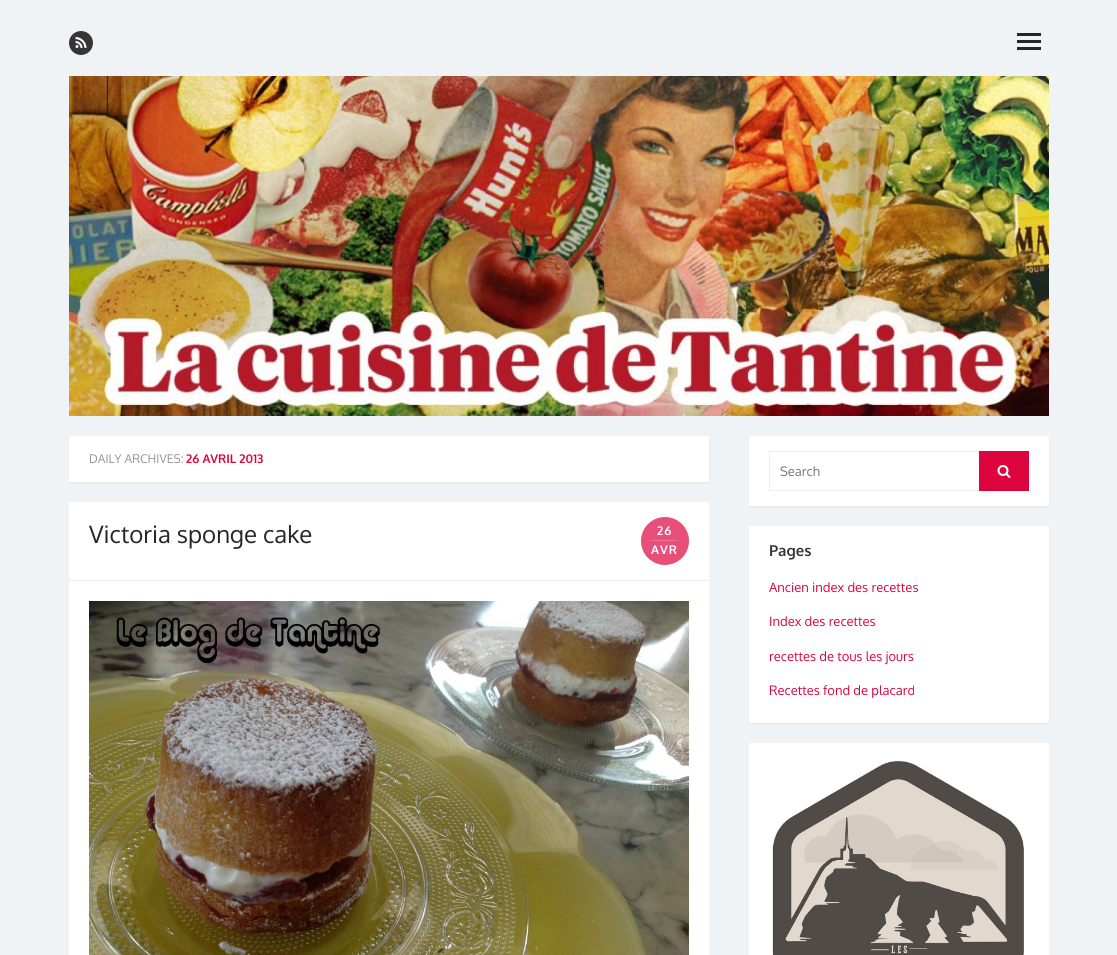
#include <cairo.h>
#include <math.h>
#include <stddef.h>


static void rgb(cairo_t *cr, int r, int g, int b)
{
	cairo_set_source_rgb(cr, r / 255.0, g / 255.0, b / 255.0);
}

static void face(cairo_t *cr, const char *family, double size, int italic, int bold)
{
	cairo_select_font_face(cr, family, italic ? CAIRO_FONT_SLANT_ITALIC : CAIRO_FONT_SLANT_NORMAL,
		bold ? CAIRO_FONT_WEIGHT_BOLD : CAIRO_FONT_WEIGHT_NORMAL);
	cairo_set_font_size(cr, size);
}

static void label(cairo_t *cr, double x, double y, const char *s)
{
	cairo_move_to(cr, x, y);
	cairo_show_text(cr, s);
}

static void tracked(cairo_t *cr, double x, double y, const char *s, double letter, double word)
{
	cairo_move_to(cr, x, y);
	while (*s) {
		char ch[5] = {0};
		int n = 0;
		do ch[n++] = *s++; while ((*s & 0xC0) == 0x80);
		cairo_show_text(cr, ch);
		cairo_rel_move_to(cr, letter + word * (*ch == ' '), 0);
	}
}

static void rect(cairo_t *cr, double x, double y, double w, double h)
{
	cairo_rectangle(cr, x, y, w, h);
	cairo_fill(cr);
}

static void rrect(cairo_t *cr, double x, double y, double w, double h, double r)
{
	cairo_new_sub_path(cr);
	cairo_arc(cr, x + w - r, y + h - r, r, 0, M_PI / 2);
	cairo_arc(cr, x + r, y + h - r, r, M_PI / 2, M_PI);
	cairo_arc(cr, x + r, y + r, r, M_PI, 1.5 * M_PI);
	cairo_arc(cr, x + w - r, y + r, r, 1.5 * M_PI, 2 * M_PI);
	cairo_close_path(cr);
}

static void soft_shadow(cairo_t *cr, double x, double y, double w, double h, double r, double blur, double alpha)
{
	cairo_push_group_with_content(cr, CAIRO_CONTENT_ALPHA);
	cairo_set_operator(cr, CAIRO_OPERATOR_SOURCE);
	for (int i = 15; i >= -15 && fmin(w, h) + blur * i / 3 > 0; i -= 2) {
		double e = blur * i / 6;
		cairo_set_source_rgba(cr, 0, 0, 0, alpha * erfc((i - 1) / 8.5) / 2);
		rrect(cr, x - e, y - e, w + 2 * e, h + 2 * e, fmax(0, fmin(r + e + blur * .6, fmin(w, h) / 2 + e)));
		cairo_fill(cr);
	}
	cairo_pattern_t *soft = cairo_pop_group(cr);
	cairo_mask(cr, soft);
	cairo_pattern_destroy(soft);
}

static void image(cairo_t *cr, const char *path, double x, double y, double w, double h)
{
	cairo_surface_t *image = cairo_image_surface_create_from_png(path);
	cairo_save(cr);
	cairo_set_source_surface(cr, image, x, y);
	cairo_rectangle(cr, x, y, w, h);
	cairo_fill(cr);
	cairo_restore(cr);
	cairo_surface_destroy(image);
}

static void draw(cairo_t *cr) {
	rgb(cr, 240, 243, 245);
	cairo_paint(cr);
	rgb(cr, 53, 53, 53);
	cairo_arc(cr, 81, 43, 12, 0, 2 * M_PI);
	cairo_fill(cr);
	image(cr, "image0.png", 75, 37, 12, 11);
	rgb(cr, 37, 37, 37);
	rect(cr, 1017, 40, 24, 3);
	rect(cr, 1017, 33, 24, 3);
	rect(cr, 1017, 47, 24, 3);
	image(cr, "image1.png", 69, 76, 980, 340);
	rgb(cr, 0, 0, 0);
	soft_shadow(cr, 69, 437, 640, 46, 0, 0.5, 0.06);
	rgb(cr, 255, 255, 255);
	rect(cr, 69, 436, 640, 46);
	face(cr, "Oxygen", 12, 0, 0);
	rgb(cr, 149, 149, 149);
	label(cr, 89, 463, "DAILY ARCHIVES:");
	face(cr, "Oxygen", 12, 0, 1);
	rgb(cr, 221, 4, 62);
	label(cr, 186, 463, "26 AVRIL 2013");
	rgb(cr, 255, 255, 255);
	rect(cr, 69, 502, 640, 453);
	rgb(cr, 237, 237, 237);
	rect(cr, 69, 580, 640, 1);
	face(cr, "Oxygen", 24, 0, 0);
	rgb(cr, 37, 37, 37);
	label(cr, 89, 543, "Victoria sponge cake");
	rgb(cr, 231, 79, 120);
	cairo_new_path(cr);
	cairo_arc(cr, 665, 541, 24, 0, 2 * M_PI);
	cairo_fill(cr);
	face(cr, "Oxygen", 12, 0, 1);
	rgb(cr, 255, 255, 255);
	tracked(cr, 657, 535, "26", 1, 0);
	rgb(cr, 236, 114, 147);
	rect(cr, 651, 540, 27, 1);
	rgb(cr, 255, 255, 255);
	tracked(cr, 651, 554, "AVR", 1, 0);
	image(cr, "image2.png", 89, 601, 600, 354);
	rgb(cr, 0, 0, 0);
	soft_shadow(cr, 749, 437, 300, 70, 0, 0.5, 0.06);
	rgb(cr, 255, 255, 255);
	rect(cr, 749, 436, 300, 70);
	cairo_rectangle(cr, 769.5, 451.5, 259, 39);
	rgb(cr, 238, 238, 238);
	cairo_set_line_width(cr, 1);
	cairo_stroke(cr);
	face(cr, "Oxygen", 13, 0, 0);
	rgb(cr, 117, 117, 117);
	label(cr, 780, 476, "Search");
	rgb(cr, 221, 4, 62);
	rect(cr, 979, 451, 50, 40);
	image(cr, "image3.png", 997, 465, 14, 13);
	rgb(cr, 0, 0, 0);
	soft_shadow(cr, 749, 527, 300, 197, 0, 0.5, 0.06);
	rgb(cr, 255, 255, 255);
	rect(cr, 749, 526, 300, 197);
	face(cr, "Oxygen", 15, 0, 1);
	rgb(cr, 53, 53, 53);
	label(cr, 769, 556, "Pages");
	face(cr, "Oxygen", 13, 0, 0);
	rgb(cr, 221, 4, 62);
	label(cr, 769, 592, "Ancien index des recettes");
	label(cr, 769, 626, "Index des recettes");
	label(cr, 769, 661, "recettes de tous les jours");
	label(cr, 769, 695, "Recettes fond de placard");
	rgb(cr, 255, 255, 255);
	rect(cr, 749, 743, 300, 212);
	image(cr, "image4.png", 772, 760, 252, 195);
}

int main(void) {
	cairo_surface_t *surface = cairo_image_surface_create(CAIRO_FORMAT_RGB24, 1117, 955);
	cairo_t *cr = cairo_create(surface);
	cairo_font_options_t *options = cairo_font_options_create();
	cairo_font_options_set_hint_metrics(options, CAIRO_HINT_METRICS_OFF);
	cairo_font_options_set_hint_style(options, CAIRO_HINT_STYLE_NONE);
	cairo_set_font_options(cr, options);
	cairo_set_miter_limit(cr, 4);
	draw(cr);
	cairo_surface_write_to_png(surface, "render.png");
	cairo_font_options_destroy(options);
	cairo_destroy(cr);
	cairo_surface_destroy(surface);
	return 0;
}
